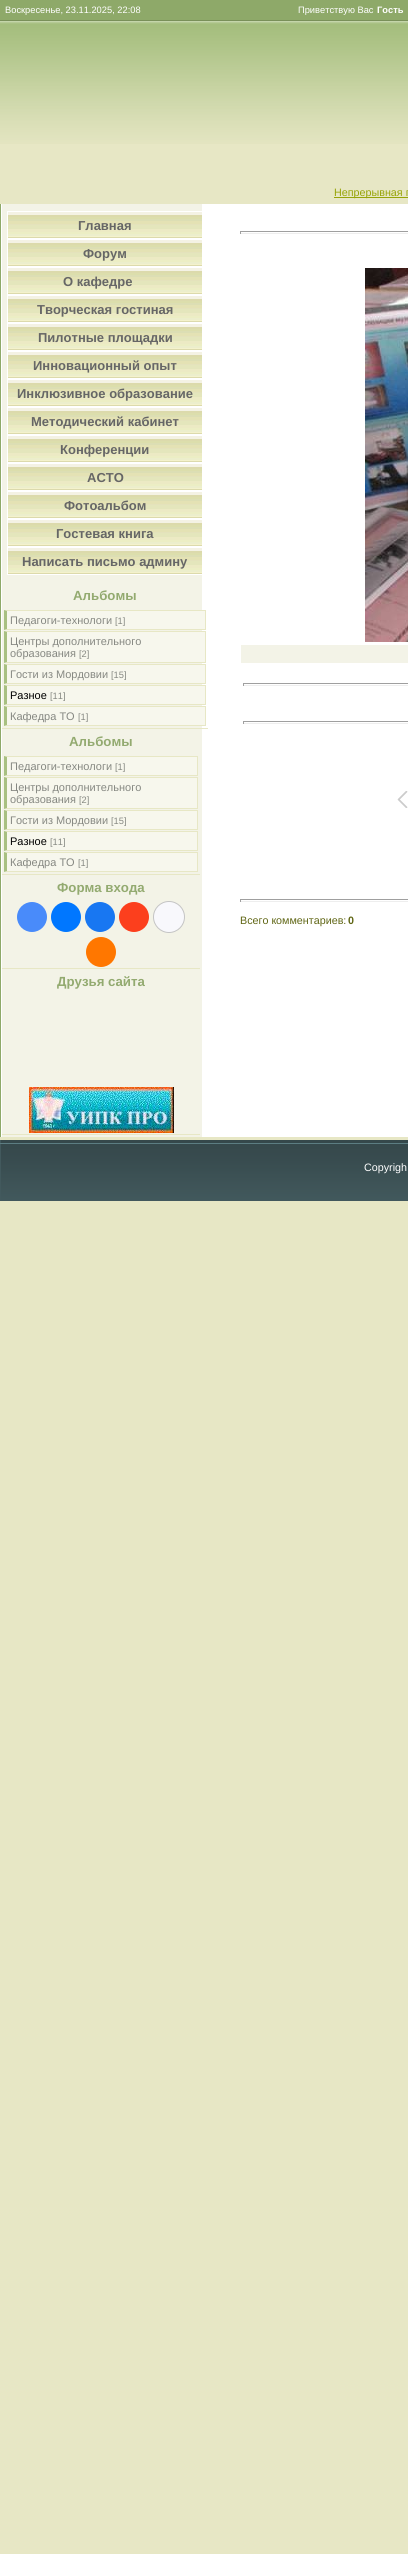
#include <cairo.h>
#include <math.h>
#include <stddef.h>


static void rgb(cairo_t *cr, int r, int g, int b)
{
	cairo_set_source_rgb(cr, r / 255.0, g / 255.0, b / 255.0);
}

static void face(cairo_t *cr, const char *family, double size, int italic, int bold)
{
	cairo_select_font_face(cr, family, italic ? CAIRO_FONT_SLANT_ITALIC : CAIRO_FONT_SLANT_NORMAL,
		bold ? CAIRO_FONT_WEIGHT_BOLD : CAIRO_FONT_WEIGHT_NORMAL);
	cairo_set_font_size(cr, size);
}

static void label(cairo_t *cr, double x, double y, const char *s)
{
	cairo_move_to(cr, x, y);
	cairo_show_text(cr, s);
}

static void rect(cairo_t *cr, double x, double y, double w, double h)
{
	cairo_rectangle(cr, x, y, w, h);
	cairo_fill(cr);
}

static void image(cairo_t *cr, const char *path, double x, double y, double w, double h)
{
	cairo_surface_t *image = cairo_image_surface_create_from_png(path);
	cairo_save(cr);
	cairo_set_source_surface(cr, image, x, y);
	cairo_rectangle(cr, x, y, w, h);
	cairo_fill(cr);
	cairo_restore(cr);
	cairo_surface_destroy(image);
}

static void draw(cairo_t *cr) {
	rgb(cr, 231, 231, 197);
	cairo_paint(cr);
	rgb(cr, 142, 169, 105);
	rect(cr, 0, 0, 408, 20);
	rgb(cr, 121, 144, 89);
	rect(cr, 0, 20, 408, 1);
	face(cr, "Liberation Sans", 9.3, 0, 0);
	rgb(cr, 255, 255, 255);
	label(cr, 5, 13, "Воскресенье, 23.11.2025, 22:08");
	label(cr, 298, 13, "Приветствую Вас");
	face(cr, "Liberation Sans", 9.3, 0, 1);
	label(cr, 377, 13, "Гость");
	image(cr, "image0.png", 0, 21, 408, 123);
	rgb(cr, 151, 164, 8);
	rect(cr, 334, 197, 74, 1);
	face(cr, "Liberation Sans", 10.75, 0, 0);
	label(cr, 334, 196, "Непрерывная п");
	image(cr, "image1.png", 0, 204, 408, 933);
	image(cr, "image2.png", 8, 212, 194, 26);
	cairo_rectangle(cr, 7.5, 211.5, 195, 27);
	rgb(cr, 255, 255, 255);
	cairo_set_line_width(cr, 1);
	cairo_stroke(cr);
	face(cr, "Liberation Sans", 13, 0, 1);
	rgb(cr, 102, 102, 102);
	label(cr, 78, 230, "Главная");
	image(cr, "image2.png", 8, 240, 194, 26);
	cairo_rectangle(cr, 7.5, 239.5, 195, 27);
	rgb(cr, 255, 255, 255);
	cairo_stroke(cr);
	rgb(cr, 102, 102, 102);
	label(cr, 83, 258, "Форум");
	image(cr, "image2.png", 8, 268, 194, 26);
	cairo_rectangle(cr, 7.5, 267.5, 195, 27);
	rgb(cr, 255, 255, 255);
	cairo_stroke(cr);
	rgb(cr, 102, 102, 102);
	label(cr, 63, 286, "О кафедре");
	image(cr, "image2.png", 8, 296, 194, 26);
	cairo_rectangle(cr, 7.5, 295.5, 195, 27);
	rgb(cr, 255, 255, 255);
	cairo_stroke(cr);
	rgb(cr, 102, 102, 102);
	label(cr, 37, 314, "Творческая гостиная");
	image(cr, "image2.png", 8, 324, 194, 26);
	cairo_rectangle(cr, 7.5, 323.5, 195, 27);
	rgb(cr, 255, 255, 255);
	cairo_stroke(cr);
	rgb(cr, 102, 102, 102);
	label(cr, 38, 342, "Пилотные площадки");
	image(cr, "image2.png", 8, 352, 194, 26);
	cairo_rectangle(cr, 7.5, 351.5, 195, 27);
	rgb(cr, 255, 255, 255);
	cairo_stroke(cr);
	rgb(cr, 102, 102, 102);
	label(cr, 33, 370, "Инновационный опыт");
	image(cr, "image2.png", 8, 380, 194, 26);
	cairo_rectangle(cr, 7.5, 379.5, 195, 27);
	rgb(cr, 255, 255, 255);
	cairo_stroke(cr);
	rgb(cr, 102, 102, 102);
	label(cr, 17, 398, "Инклюзивное образование");
	image(cr, "image2.png", 8, 408, 194, 26);
	cairo_rectangle(cr, 7.5, 407.5, 195, 27);
	rgb(cr, 255, 255, 255);
	cairo_stroke(cr);
	rgb(cr, 102, 102, 102);
	label(cr, 31, 426, "Методический кабинет");
	image(cr, "image2.png", 8, 436, 194, 26);
	cairo_rectangle(cr, 7.5, 435.5, 195, 27);
	rgb(cr, 255, 255, 255);
	cairo_stroke(cr);
	rgb(cr, 102, 102, 102);
	label(cr, 60, 454, "Конференции");
	image(cr, "image2.png", 8, 464, 194, 26);
	cairo_rectangle(cr, 7.5, 463.5, 195, 27);
	rgb(cr, 255, 255, 255);
	cairo_stroke(cr);
	rgb(cr, 102, 102, 102);
	label(cr, 87, 482, "АСТО");
	image(cr, "image2.png", 8, 492, 194, 26);
	cairo_rectangle(cr, 7.5, 491.5, 195, 27);
	rgb(cr, 255, 255, 255);
	cairo_stroke(cr);
	rgb(cr, 102, 102, 102);
	label(cr, 64, 510, "Фотоальбом");
	image(cr, "image2.png", 8, 520, 194, 26);
	cairo_rectangle(cr, 7.5, 519.5, 195, 27);
	rgb(cr, 255, 255, 255);
	cairo_stroke(cr);
	rgb(cr, 102, 102, 102);
	label(cr, 56, 538, "Гостевая книга");
	image(cr, "image2.png", 8, 548, 194, 26);
	cairo_rectangle(cr, 7.5, 547.5, 195, 27);
	rgb(cr, 255, 255, 255);
	cairo_stroke(cr);
	rgb(cr, 102, 102, 102);
	label(cr, 22, 566, "Написать письмо админу");
	face(cr, "Liberation Sans", 13.25, 0, 1);
	rgb(cr, 147, 170, 112);
	label(cr, 73, 600, "Альбомы");
	rgb(cr, 231, 231, 197);
	rect(cr, 2, 728, 206, 1);
	rgb(cr, 247, 247, 237);
	rect(cr, 7, 611, 198, 18);
	rgb(cr, 231, 231, 197);
	cairo_new_path(cr);
	cairo_move_to(cr, 4, 610);
	cairo_line_to(cr, 206, 610);
	cairo_line_to(cr, 205, 611);
	cairo_line_to(cr, 7, 611);
	cairo_close_path(cr);
	cairo_fill(cr);
	rect(cr, 205, 610, 1, 20);
	cairo_new_path(cr);
	cairo_move_to(cr, 206, 630);
	cairo_line_to(cr, 4, 630);
	cairo_line_to(cr, 7, 629);
	cairo_line_to(cr, 205, 629);
	cairo_close_path(cr);
	cairo_fill(cr);
	rgb(cr, 168, 192, 129);
	cairo_new_path(cr);
	cairo_move_to(cr, 4, 630);
	cairo_line_to(cr, 4, 610);
	cairo_line_to(cr, 7, 611);
	cairo_line_to(cr, 7, 629);
	cairo_close_path(cr);
	cairo_fill(cr);
	face(cr, "Liberation Sans", 11, 0, 0);
	rgb(cr, 134, 136, 130);
	label(cr, 10, 624, "Педагоги-технологи");
	face(cr, "Liberation Sans", 9.3, 0, 0);
	label(cr, 115, 624, "[1]");
	rgb(cr, 247, 247, 237);
	rect(cr, 7, 632, 198, 30);
	rgb(cr, 231, 231, 197);
	cairo_new_path(cr);
	cairo_move_to(cr, 4, 631);
	cairo_line_to(cr, 206, 631);
	cairo_line_to(cr, 205, 632);
	cairo_line_to(cr, 7, 632);
	cairo_close_path(cr);
	cairo_fill(cr);
	rect(cr, 205, 631, 1, 32);
	cairo_new_path(cr);
	cairo_move_to(cr, 206, 663);
	cairo_line_to(cr, 4, 663);
	cairo_line_to(cr, 7, 662);
	cairo_line_to(cr, 205, 662);
	cairo_close_path(cr);
	cairo_fill(cr);
	rgb(cr, 168, 192, 129);
	cairo_new_path(cr);
	cairo_move_to(cr, 4, 663);
	cairo_line_to(cr, 4, 631);
	cairo_line_to(cr, 7, 632);
	cairo_line_to(cr, 7, 662);
	cairo_close_path(cr);
	cairo_fill(cr);
	face(cr, "Liberation Sans", 11, 0, 0);
	rgb(cr, 134, 136, 130);
	label(cr, 10, 645, "Центры дополнительного");
	label(cr, 10, 657, "образования");
	face(cr, "Liberation Sans", 9.3, 0, 0);
	label(cr, 79, 657, "[2]");
	rgb(cr, 247, 247, 237);
	rect(cr, 7, 665, 198, 18);
	rgb(cr, 231, 231, 197);
	cairo_new_path(cr);
	cairo_move_to(cr, 4, 664);
	cairo_line_to(cr, 206, 664);
	cairo_line_to(cr, 205, 665);
	cairo_line_to(cr, 7, 665);
	cairo_close_path(cr);
	cairo_fill(cr);
	rect(cr, 205, 664, 1, 20);
	cairo_new_path(cr);
	cairo_move_to(cr, 206, 684);
	cairo_line_to(cr, 4, 684);
	cairo_line_to(cr, 7, 683);
	cairo_line_to(cr, 205, 683);
	cairo_close_path(cr);
	cairo_fill(cr);
	rgb(cr, 168, 192, 129);
	cairo_new_path(cr);
	cairo_move_to(cr, 4, 684);
	cairo_line_to(cr, 4, 664);
	cairo_line_to(cr, 7, 665);
	cairo_line_to(cr, 7, 683);
	cairo_close_path(cr);
	cairo_fill(cr);
	face(cr, "Liberation Sans", 11, 0, 0);
	rgb(cr, 134, 136, 130);
	label(cr, 10, 678, "Гости из Мордовии");
	face(cr, "Liberation Sans", 9.3, 0, 0);
	label(cr, 111, 678, "[15]");
	rgb(cr, 247, 247, 237);
	rect(cr, 7, 686, 198, 18);
	rgb(cr, 231, 231, 197);
	cairo_new_path(cr);
	cairo_move_to(cr, 4, 685);
	cairo_line_to(cr, 206, 685);
	cairo_line_to(cr, 205, 686);
	cairo_line_to(cr, 7, 686);
	cairo_close_path(cr);
	cairo_fill(cr);
	rect(cr, 205, 685, 1, 20);
	cairo_new_path(cr);
	cairo_move_to(cr, 206, 705);
	cairo_line_to(cr, 4, 705);
	cairo_line_to(cr, 7, 704);
	cairo_line_to(cr, 205, 704);
	cairo_close_path(cr);
	cairo_fill(cr);
	rgb(cr, 168, 192, 129);
	cairo_new_path(cr);
	cairo_move_to(cr, 4, 705);
	cairo_line_to(cr, 4, 685);
	cairo_line_to(cr, 7, 686);
	cairo_line_to(cr, 7, 704);
	cairo_close_path(cr);
	cairo_fill(cr);
	face(cr, "Liberation Sans", 11, 0, 0);
	rgb(cr, 0, 0, 0);
	label(cr, 10, 699, "Разное");
	face(cr, "Liberation Sans", 9.3, 0, 0);
	rgb(cr, 134, 136, 130);
	label(cr, 50, 699, "[11]");
	rgb(cr, 247, 247, 237);
	rect(cr, 7, 707, 198, 18);
	rgb(cr, 231, 231, 197);
	cairo_new_path(cr);
	cairo_move_to(cr, 4, 706);
	cairo_line_to(cr, 206, 706);
	cairo_line_to(cr, 205, 707);
	cairo_line_to(cr, 7, 707);
	cairo_close_path(cr);
	cairo_fill(cr);
	rect(cr, 205, 706, 1, 20);
	cairo_new_path(cr);
	cairo_move_to(cr, 206, 726);
	cairo_line_to(cr, 4, 726);
	cairo_line_to(cr, 7, 725);
	cairo_line_to(cr, 205, 725);
	cairo_close_path(cr);
	cairo_fill(cr);
	rgb(cr, 168, 192, 129);
	cairo_new_path(cr);
	cairo_move_to(cr, 4, 726);
	cairo_line_to(cr, 4, 706);
	cairo_line_to(cr, 7, 707);
	cairo_line_to(cr, 7, 725);
	cairo_close_path(cr);
	cairo_fill(cr);
	face(cr, "Liberation Sans", 11, 0, 0);
	rgb(cr, 134, 136, 130);
	label(cr, 10, 720, "Кафедра ТО");
	face(cr, "Liberation Sans", 9.3, 0, 0);
	label(cr, 78, 720, "[1]");
	face(cr, "Liberation Sans", 13.25, 0, 1);
	rgb(cr, 147, 170, 112);
	label(cr, 69, 746, "Альбомы");
	rgb(cr, 231, 231, 197);
	rect(cr, 2, 874, 198, 1);
	rgb(cr, 247, 247, 237);
	rect(cr, 7, 757, 190, 18);
	rgb(cr, 231, 231, 197);
	cairo_new_path(cr);
	cairo_move_to(cr, 4, 756);
	cairo_line_to(cr, 198, 756);
	cairo_line_to(cr, 197, 757);
	cairo_line_to(cr, 7, 757);
	cairo_close_path(cr);
	cairo_fill(cr);
	rect(cr, 197, 756, 1, 20);
	cairo_new_path(cr);
	cairo_move_to(cr, 198, 776);
	cairo_line_to(cr, 4, 776);
	cairo_line_to(cr, 7, 775);
	cairo_line_to(cr, 197, 775);
	cairo_close_path(cr);
	cairo_fill(cr);
	rgb(cr, 168, 192, 129);
	cairo_new_path(cr);
	cairo_move_to(cr, 4, 776);
	cairo_line_to(cr, 4, 756);
	cairo_line_to(cr, 7, 757);
	cairo_line_to(cr, 7, 775);
	cairo_close_path(cr);
	cairo_fill(cr);
	face(cr, "Liberation Sans", 11, 0, 0);
	rgb(cr, 134, 136, 130);
	label(cr, 10, 770, "Педагоги-технологи");
	face(cr, "Liberation Sans", 9.3, 0, 0);
	label(cr, 115, 770, "[1]");
	rgb(cr, 247, 247, 237);
	rect(cr, 7, 778, 190, 30);
	rgb(cr, 231, 231, 197);
	cairo_new_path(cr);
	cairo_move_to(cr, 4, 777);
	cairo_line_to(cr, 198, 777);
	cairo_line_to(cr, 197, 778);
	cairo_line_to(cr, 7, 778);
	cairo_close_path(cr);
	cairo_fill(cr);
	rect(cr, 197, 777, 1, 32);
	cairo_new_path(cr);
	cairo_move_to(cr, 198, 809);
	cairo_line_to(cr, 4, 809);
	cairo_line_to(cr, 7, 808);
	cairo_line_to(cr, 197, 808);
	cairo_close_path(cr);
	cairo_fill(cr);
	rgb(cr, 168, 192, 129);
	cairo_new_path(cr);
	cairo_move_to(cr, 4, 809);
	cairo_line_to(cr, 4, 777);
	cairo_line_to(cr, 7, 778);
	cairo_line_to(cr, 7, 808);
	cairo_close_path(cr);
	cairo_fill(cr);
	face(cr, "Liberation Sans", 11, 0, 0);
	rgb(cr, 134, 136, 130);
	label(cr, 10, 791, "Центры дополнительного");
	label(cr, 10, 803, "образования");
	face(cr, "Liberation Sans", 9.3, 0, 0);
	label(cr, 79, 803, "[2]");
	rgb(cr, 247, 247, 237);
	rect(cr, 7, 811, 190, 18);
	rgb(cr, 231, 231, 197);
	cairo_new_path(cr);
	cairo_move_to(cr, 4, 810);
	cairo_line_to(cr, 198, 810);
	cairo_line_to(cr, 197, 811);
	cairo_line_to(cr, 7, 811);
	cairo_close_path(cr);
	cairo_fill(cr);
	rect(cr, 197, 810, 1, 20);
	cairo_new_path(cr);
	cairo_move_to(cr, 198, 830);
	cairo_line_to(cr, 4, 830);
	cairo_line_to(cr, 7, 829);
	cairo_line_to(cr, 197, 829);
	cairo_close_path(cr);
	cairo_fill(cr);
	rgb(cr, 168, 192, 129);
	cairo_new_path(cr);
	cairo_move_to(cr, 4, 830);
	cairo_line_to(cr, 4, 810);
	cairo_line_to(cr, 7, 811);
	cairo_line_to(cr, 7, 829);
	cairo_close_path(cr);
	cairo_fill(cr);
	face(cr, "Liberation Sans", 11, 0, 0);
	rgb(cr, 134, 136, 130);
	label(cr, 10, 824, "Гости из Мордовии");
	face(cr, "Liberation Sans", 9.3, 0, 0);
	label(cr, 111, 824, "[15]");
	rgb(cr, 247, 247, 237);
	rect(cr, 7, 832, 190, 18);
	rgb(cr, 231, 231, 197);
	cairo_new_path(cr);
	cairo_move_to(cr, 4, 831);
	cairo_line_to(cr, 198, 831);
	cairo_line_to(cr, 197, 832);
	cairo_line_to(cr, 7, 832);
	cairo_close_path(cr);
	cairo_fill(cr);
	rect(cr, 197, 831, 1, 20);
	cairo_new_path(cr);
	cairo_move_to(cr, 198, 851);
	cairo_line_to(cr, 4, 851);
	cairo_line_to(cr, 7, 850);
	cairo_line_to(cr, 197, 850);
	cairo_close_path(cr);
	cairo_fill(cr);
	rgb(cr, 168, 192, 129);
	cairo_new_path(cr);
	cairo_move_to(cr, 4, 851);
	cairo_line_to(cr, 4, 831);
	cairo_line_to(cr, 7, 832);
	cairo_line_to(cr, 7, 850);
	cairo_close_path(cr);
	cairo_fill(cr);
	face(cr, "Liberation Sans", 11, 0, 0);
	rgb(cr, 0, 0, 0);
	label(cr, 10, 845, "Разное");
	face(cr, "Liberation Sans", 9.3, 0, 0);
	rgb(cr, 134, 136, 130);
	label(cr, 50, 845, "[11]");
	rgb(cr, 247, 247, 237);
	rect(cr, 7, 853, 190, 18);
	rgb(cr, 231, 231, 197);
	cairo_new_path(cr);
	cairo_move_to(cr, 4, 852);
	cairo_line_to(cr, 198, 852);
	cairo_line_to(cr, 197, 853);
	cairo_line_to(cr, 7, 853);
	cairo_close_path(cr);
	cairo_fill(cr);
	rect(cr, 197, 852, 1, 20);
	cairo_new_path(cr);
	cairo_move_to(cr, 198, 872);
	cairo_line_to(cr, 4, 872);
	cairo_line_to(cr, 7, 871);
	cairo_line_to(cr, 197, 871);
	cairo_close_path(cr);
	cairo_fill(cr);
	rgb(cr, 168, 192, 129);
	cairo_new_path(cr);
	cairo_move_to(cr, 4, 872);
	cairo_line_to(cr, 4, 852);
	cairo_line_to(cr, 7, 853);
	cairo_line_to(cr, 7, 871);
	cairo_close_path(cr);
	cairo_fill(cr);
	face(cr, "Liberation Sans", 11, 0, 0);
	rgb(cr, 134, 136, 130);
	label(cr, 10, 866, "Кафедра ТО");
	face(cr, "Liberation Sans", 9.3, 0, 0);
	label(cr, 78, 866, "[1]");
	face(cr, "Liberation Sans", 13.25, 0, 1);
	rgb(cr, 147, 170, 112);
	label(cr, 57, 892, "Форма входа");
	rgb(cr, 231, 231, 197);
	rect(cr, 2, 968, 198, 1);
	rgb(cr, 73, 139, 250);
	cairo_new_path(cr);
	cairo_arc(cr, 32, 917, 15, 0, 2 * M_PI);
	cairo_fill(cr);
	rgb(cr, 0, 119, 255);
	cairo_arc(cr, 66, 917, 15, 0, 2 * M_PI);
	cairo_fill(cr);
	rgb(cr, 24, 119, 242);
	cairo_arc(cr, 100, 917, 15, 0, 2 * M_PI);
	cairo_fill(cr);
	rgb(cr, 252, 63, 29);
	cairo_arc(cr, 134, 917, 15, 0, 2 * M_PI);
	cairo_fill(cr);
	rgb(cr, 248, 248, 252);
	cairo_arc(cr, 169, 917, 15.5, 0, 2 * M_PI);
	cairo_fill_preserve(cr);
	rgb(cr, 196, 196, 196);
	cairo_stroke(cr);
	rgb(cr, 255, 119, 0);
	cairo_arc(cr, 101, 952, 15, 0, 2 * M_PI);
	cairo_fill(cr);
	rgb(cr, 147, 170, 112);
	label(cr, 57, 986, "Друзья сайта");
	rgb(cr, 231, 231, 197);
	rect(cr, 2, 1134, 198, 1);
	image(cr, "image3.png", 29, 1087, 145, 46);
	rgb(cr, 159, 159, 159);
	rect(cr, 240, 231, 168, 1);
	rgb(cr, 238, 238, 238);
	rect(cr, 240, 233, 168, 1);
	rgb(cr, 159, 159, 159);
	rect(cr, 240, 231, 1, 3);
	image(cr, "image4.png", 365, 268, 43, 374);
	rgb(cr, 243, 243, 231);
	rect(cr, 241, 645, 167, 18);
	rgb(cr, 159, 159, 159);
	rect(cr, 243, 683, 165, 1);
	rgb(cr, 238, 238, 238);
	rect(cr, 243, 685, 165, 1);
	rgb(cr, 159, 159, 159);
	rect(cr, 243, 683, 1, 3);
	rect(cr, 243, 721, 165, 1);
	rgb(cr, 238, 238, 238);
	rect(cr, 243, 723, 165, 1);
	rgb(cr, 159, 159, 159);
	rect(cr, 243, 721, 1, 3);
	image(cr, "image5.png", 397, 791, 11, 17);
	rect(cr, 240, 899, 168, 1);
	rgb(cr, 238, 238, 238);
	rect(cr, 240, 901, 168, 1);
	rgb(cr, 159, 159, 159);
	rect(cr, 240, 899, 1, 3);
	face(cr, "Liberation Sans", 10.75, 0, 0);
	rgb(cr, 96, 102, 21);
	label(cr, 240, 924, "Всего комментариев:");
	face(cr, "Liberation Sans", 10.75, 0, 1);
	label(cr, 348, 924, "0");
	image(cr, "image6.png", 0, 1140, 408, 61);
	face(cr, "Liberation Sans", 10.75, 0, 0);
	rgb(cr, 255, 255, 255);
	label(cr, 364, 1171, "Copyrigh");
}

int main(void) {
	cairo_surface_t *surface = cairo_image_surface_create(CAIRO_FORMAT_RGB24, 408, 2554);
	cairo_t *cr = cairo_create(surface);
	cairo_font_options_t *options = cairo_font_options_create();
	cairo_font_options_set_hint_metrics(options, CAIRO_HINT_METRICS_OFF);
	cairo_font_options_set_hint_style(options, CAIRO_HINT_STYLE_NONE);
	cairo_set_font_options(cr, options);
	cairo_set_miter_limit(cr, 4);
	draw(cr);
	cairo_surface_write_to_png(surface, "render.png");
	cairo_font_options_destroy(options);
	cairo_destroy(cr);
	cairo_surface_destroy(surface);
	return 0;
}
